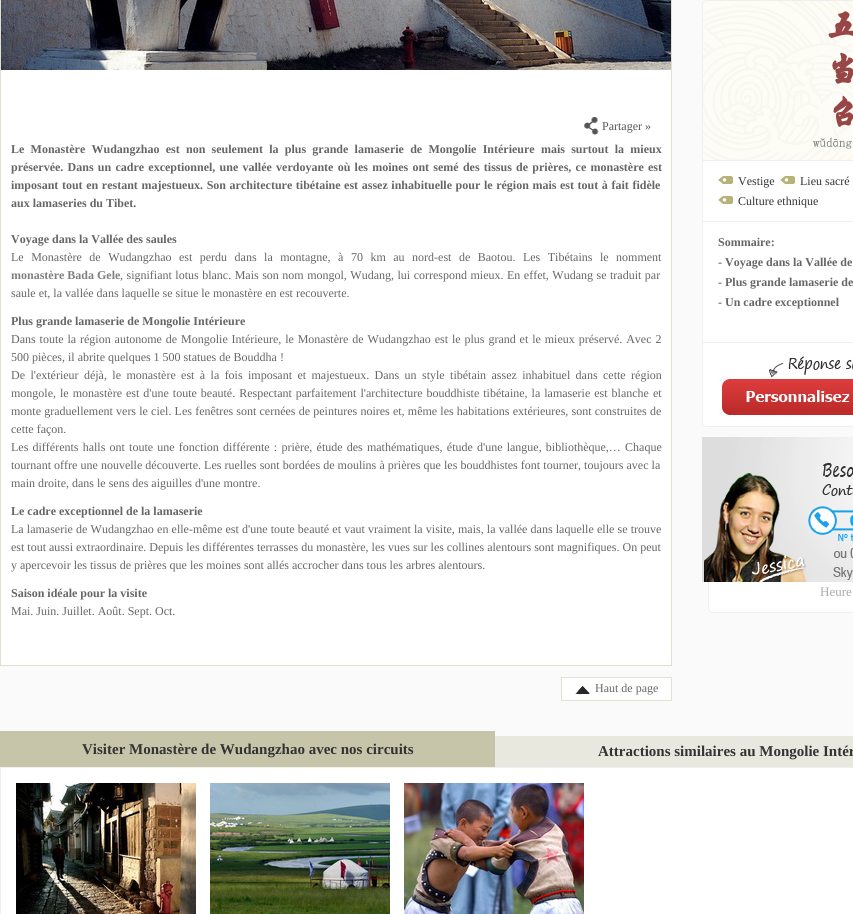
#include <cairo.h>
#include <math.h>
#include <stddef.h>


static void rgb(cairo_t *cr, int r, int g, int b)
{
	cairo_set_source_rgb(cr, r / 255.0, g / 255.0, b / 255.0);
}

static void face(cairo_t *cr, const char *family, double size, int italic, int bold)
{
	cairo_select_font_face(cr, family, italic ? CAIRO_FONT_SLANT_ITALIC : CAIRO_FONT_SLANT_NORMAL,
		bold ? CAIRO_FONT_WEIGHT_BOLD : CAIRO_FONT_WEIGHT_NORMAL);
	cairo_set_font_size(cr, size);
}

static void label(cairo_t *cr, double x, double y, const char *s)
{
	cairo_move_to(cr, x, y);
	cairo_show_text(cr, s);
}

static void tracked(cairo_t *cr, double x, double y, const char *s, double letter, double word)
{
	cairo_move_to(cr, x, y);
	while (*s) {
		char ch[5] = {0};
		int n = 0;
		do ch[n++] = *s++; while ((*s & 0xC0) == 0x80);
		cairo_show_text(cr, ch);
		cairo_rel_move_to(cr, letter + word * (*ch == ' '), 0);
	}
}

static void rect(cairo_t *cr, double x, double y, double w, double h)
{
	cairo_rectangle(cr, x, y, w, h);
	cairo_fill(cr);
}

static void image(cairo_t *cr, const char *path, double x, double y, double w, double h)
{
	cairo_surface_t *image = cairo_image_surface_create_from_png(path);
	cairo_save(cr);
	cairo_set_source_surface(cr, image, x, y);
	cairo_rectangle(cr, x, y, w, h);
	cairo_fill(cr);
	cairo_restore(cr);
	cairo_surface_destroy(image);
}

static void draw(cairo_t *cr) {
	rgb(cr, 250, 250, 250);
	cairo_paint(cr);
	rgb(cr, 255, 255, 255);
	rect(cr, 1, 70, 670, 595);
	cairo_rectangle(cr, 0.5, -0.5, 671, 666);
	rgb(cr, 223, 223, 210);
	cairo_set_line_width(cr, 1);
	cairo_stroke(cr);
	image(cr, "image0.png", 1, 0, 670, 70);
	image(cr, "image1.png", 584, 117, 15, 18);
	face(cr, "Liberation Serif", 12, 0, 0);
	rgb(cr, 85, 85, 85);
	label(cr, 602, 130, "Partager »");
	face(cr, "Liberation Serif", 12, 0, 1);
	rgb(cr, 102, 102, 102);
	tracked(cr, 11, 153, "Le Monastère Wudangzhao est non seulement la plus grande lamaserie de Mongolie Intérieure mais surtout la mieux", 0, 3.25);
	tracked(cr, 11, 171, "préservée. Dans un cadre exceptionnel, une vallée verdoyante où les moines ont semé des tissus de prières, ce monastère est", 0, 1.25);
	tracked(cr, 11, 189, "imposant tout en restant majestueux. Son architecture tibétaine est assez inhabituelle pour le région mais est tout à fait fidèle", 0, 0.6);
	label(cr, 11, 207, "aux lamaseries du Tibet.");
	label(cr, 11, 243, "Voyage dans la Vallée des saules");
	face(cr, "Liberation Serif", 12, 0, 0);
	tracked(cr, 11, 261, "Le Monastère de Wudangzhao est perdu dans la montagne, à 70 km au nord-est de Baotou. Les Tibétains le nomment", 0, 4.5);
	face(cr, "Liberation Serif", 12, 0, 1);
	rgb(cr, 128, 128, 128);
	label(cr, 11, 279, "monastère Bada Gele");
	face(cr, "Liberation Serif", 12, 0, 0);
	rgb(cr, 102, 102, 102);
	tracked(cr, 120, 279, ", signifiant lotus blanc. Mais son nom mongol, Wudang, lui correspond mieux. En effet, Wudang se traduit par", 0, 0.5);
	label(cr, 11, 297, "saule et, la vallée dans laquelle se situe le monastère en est recouverte.");
	face(cr, "Liberation Serif", 12, 0, 1);
	label(cr, 11, 325, "Plus grande lamaserie de Mongolie Intérieure");
	face(cr, "Liberation Serif", 12, 0, 0);
	tracked(cr, 11, 343, "Dans toute la région autonome de Mongolie Intérieure, le Monastère de Wudangzhao est le plus grand et le mieux préservé. Avec 2", 0, 0.9);
	label(cr, 11, 361, "500 pièces, il abrite quelques 1 500 statues de Bouddha !");
	tracked(cr, 11, 379, "De l'extérieur déjà, le monastère est à la fois imposant et majestueux. Dans un style tibétain assez inhabituel dans cette région", 0, 2.4);
	tracked(cr, 11, 397, "mongole, le monastère est d'une toute beauté. Respectant parfaitement l'architecture bouddhiste tibétaine, la lamaserie est blanche et", 0, 1);
	tracked(cr, 11, 415, "monte graduellement vers le ciel. Les fenêtres sont cernées de peintures noires et, même les habitations extérieures, sont construites de", 0, 0.2);
	label(cr, 11, 433, "cette façon.");
	tracked(cr, 11, 451, "Les différents halls ont toute une fonction différente : prière, étude des mathématiques, étude d'une langue, bibliothèque,… Chaque", 0, 1.2);
	tracked(cr, 11, 469, "tournant offre une nouvelle découverte. Les ruelles sont bordées de moulins à prières que les bouddhistes font tourner, toujours avec la", 0, 0.1);
	label(cr, 11, 487, "main droite, dans le sens des aiguilles d'une montre.");
	face(cr, "Liberation Serif", 12, 0, 1);
	label(cr, 11, 515, "Le cadre exceptionnel de la lamaserie");
	face(cr, "Liberation Serif", 12, 0, 0);
	tracked(cr, 11, 533, "La lamaserie de Wudangzhao en elle-même est d'une toute beauté et vaut vraiment la visite, mais, la vallée dans laquelle elle se trouve", 0, 0.2);
	label(cr, 11, 551, "est tout aussi extraordinaire. Depuis les différentes terrasses du monastère, les vues sur les collines alentours sont magnifiques. On peut");
	label(cr, 11, 569, "y apercevoir les tissus de prières que les moines sont allés accrocher dans tous les arbres alentours.");
	face(cr, "Liberation Serif", 12, 0, 1);
	label(cr, 11, 597, "Saison idéale pour la visite");
	face(cr, "Liberation Serif", 12, 0, 0);
	label(cr, 11, 615, "Mai. Juin. Juillet. Août. Sept. Oct.");
	rgb(cr, 255, 255, 255);
	cairo_rectangle(cr, 561.5, 677.5, 110, 23);
	cairo_fill_preserve(cr);
	rgb(cr, 225, 225, 212);
	cairo_stroke(cr);
	image(cr, "image2.png", 575, 686, 16, 9);
	rgb(cr, 102, 102, 102);
	label(cr, 595, 692, "Haut de page");
	image(cr, "image3.png", 702, 0, 151, 160);
	rgb(cr, 239, 239, 239);
	cairo_set_fill_rule(cr, CAIRO_FILL_RULE_EVEN_ODD);
	cairo_new_path(cr);
	cairo_move_to(cr, 707, 0);
	cairo_line_to(cr, 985, 0);
	cairo_curve_to(cr, 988, 0, 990, 2, 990, 5);
	cairo_line_to(cr, 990, 160);
	cairo_line_to(cr, 702, 160);
	cairo_line_to(cr, 702, 5);
	cairo_curve_to(cr, 702, 2, 704, 0, 707, 0);
	cairo_close_path(cr);
	cairo_move_to(cr, 707, 1);
	cairo_line_to(cr, 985, 1);
	cairo_curve_to(cr, 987, 1, 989, 3, 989, 5);
	cairo_line_to(cr, 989, 160);
	cairo_line_to(cr, 703, 160);
	cairo_line_to(cr, 703, 5);
	cairo_curve_to(cr, 703, 3, 705, 1, 707, 1);
	cairo_close_path(cr);
	cairo_fill(cr);
	image(cr, "image4.png", 813, 11, 40, 138);
	rgb(cr, 255, 255, 255);
	cairo_new_path(cr);
	cairo_move_to(cr, 702.5, 160.5);
	cairo_line_to(cr, 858.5, 160.5);
	cairo_line_to(cr, 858.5, 422);
	cairo_curve_to(cr, 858.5, 424.5, 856.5, 426.5, 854, 426.5);
	cairo_line_to(cr, 707, 426.5);
	cairo_curve_to(cr, 704.5, 426.5, 702.5, 424.5, 702.5, 422);
	cairo_close_path(cr);
	cairo_fill_preserve(cr);
	rgb(cr, 239, 239, 239);
	cairo_stroke(cr);
	rect(cr, 703, 221, 150, 1);
	image(cr, "image5.png", 718, 176, 15, 8);
	rgb(cr, 51, 51, 51);
	label(cr, 738, 185, "Vestige");
	image(cr, "image5.png", 780, 176, 15, 8);
	label(cr, 800, 185, "Lieu sacré");
	image(cr, "image5.png", 718, 196, 15, 8);
	label(cr, 738, 205, "Culture ethnique");
	rgb(cr, 239, 239, 239);
	rect(cr, 703, 342, 150, 1);
	face(cr, "Liberation Serif", 12, 0, 1);
	rgb(cr, 102, 102, 102);
	label(cr, 718, 246, "Sommaire:");
	label(cr, 718, 266, "- Voyage dans la Vallée de");
	label(cr, 718, 286, "- Plus grande lamaserie de");
	label(cr, 718, 306, "- Un cadre exceptionnel");
	image(cr, "image6.png", 703, 352, 150, 74);
	image(cr, "image7.png", 702, 437, 151, 140);
	image(cr, "image8.png", 702, 577, 151, 5);
	image(cr, "image9.png", 704, 463, 149, 119);
	rgb(cr, 255, 255, 255);
	cairo_new_path(cr);
	cairo_move_to(cr, 708, 582);
	cairo_line_to(cr, 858, 582);
	cairo_line_to(cr, 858, 608);
	cairo_curve_to(cr, 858, 611, 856, 613, 853, 613);
	cairo_line_to(cr, 713, 613);
	cairo_curve_to(cr, 710, 613, 708, 611, 708, 608);
	cairo_close_path(cr);
	cairo_fill(cr);
	rgb(cr, 239, 239, 239);
	cairo_new_path(cr);
	cairo_move_to(cr, 708, 582);
	cairo_line_to(cr, 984, 582);
	cairo_line_to(cr, 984, 608);
	cairo_curve_to(cr, 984, 611, 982, 613, 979, 613);
	cairo_line_to(cr, 713, 613);
	cairo_curve_to(cr, 710, 613, 708, 611, 708, 608);
	cairo_close_path(cr);
	cairo_move_to(cr, 709, 582);
	cairo_line_to(cr, 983, 582);
	cairo_line_to(cr, 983, 608);
	cairo_curve_to(cr, 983, 610, 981, 612, 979, 612);
	cairo_line_to(cr, 713, 612);
	cairo_curve_to(cr, 711, 612, 709, 610, 709, 608);
	cairo_close_path(cr);
	cairo_fill(cr);
	face(cr, "Liberation Serif", 13, 0, 0);
	rgb(cr, 170, 170, 170);
	label(cr, 820, 596, "Heure");
	rgb(cr, 199, 197, 169);
	rect(cr, 0, 731, 495, 36);
	face(cr, "Liberation Serif", 15, 0, 1);
	rgb(cr, 51, 51, 51);
	label(cr, 82, 754, "Visiter Monastère de Wudangzhao avec nos circuits");
	rgb(cr, 233, 232, 222);
	rect(cr, 495, 736, 358, 31);
	rgb(cr, 51, 51, 51);
	label(cr, 598, 756, "Attractions similaires au Mongolie Intér");
	rgb(cr, 255, 255, 255);
	cairo_rectangle(cr, 0.5, 767.5, 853, 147);
	cairo_fill_preserve(cr);
	rgb(cr, 239, 239, 239);
	cairo_stroke(cr);
	image(cr, "image10.png", 16, 783, 180, 131);
	image(cr, "image11.png", 210, 783, 180, 131);
	image(cr, "image12.png", 404, 783, 180, 131);
}

int main(void) {
	cairo_surface_t *surface = cairo_image_surface_create(CAIRO_FORMAT_RGB24, 853, 914);
	cairo_t *cr = cairo_create(surface);
	cairo_font_options_t *options = cairo_font_options_create();
	cairo_font_options_set_hint_metrics(options, CAIRO_HINT_METRICS_OFF);
	cairo_font_options_set_hint_style(options, CAIRO_HINT_STYLE_NONE);
	cairo_set_font_options(cr, options);
	cairo_set_miter_limit(cr, 4);
	draw(cr);
	cairo_surface_write_to_png(surface, "render.png");
	cairo_font_options_destroy(options);
	cairo_destroy(cr);
	cairo_surface_destroy(surface);
	return 0;
}
